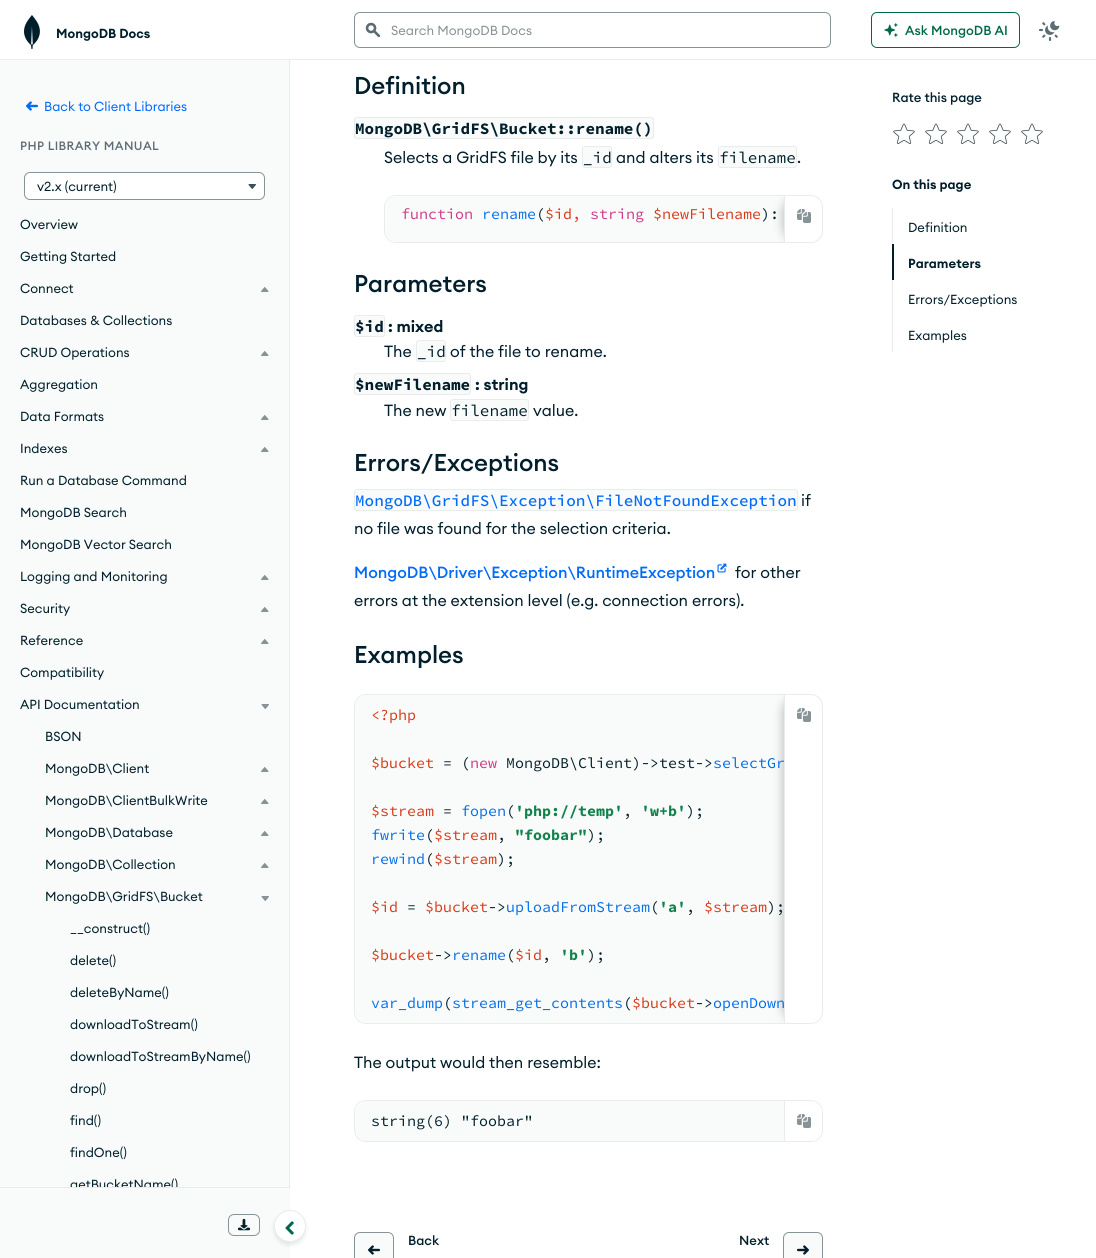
#include <cairo.h>
#include <math.h>
#include <stddef.h>


static void rgb(cairo_t *cr, int r, int g, int b)
{
	cairo_set_source_rgb(cr, r / 255.0, g / 255.0, b / 255.0);
}

static void face(cairo_t *cr, const char *family, double size, int italic, int bold)
{
	cairo_select_font_face(cr, family, italic ? CAIRO_FONT_SLANT_ITALIC : CAIRO_FONT_SLANT_NORMAL,
		bold ? CAIRO_FONT_WEIGHT_BOLD : CAIRO_FONT_WEIGHT_NORMAL);
	cairo_set_font_size(cr, size);
}

static void label(cairo_t *cr, double x, double y, const char *s)
{
	cairo_move_to(cr, x, y);
	cairo_show_text(cr, s);
}

static void tracked(cairo_t *cr, double x, double y, const char *s, double letter, double word)
{
	cairo_move_to(cr, x, y);
	while (*s) {
		char ch[5] = {0};
		int n = 0;
		do ch[n++] = *s++; while ((*s & 0xC0) == 0x80);
		cairo_show_text(cr, ch);
		cairo_rel_move_to(cr, letter + word * (*ch == ' '), 0);
	}
}

static void rect(cairo_t *cr, double x, double y, double w, double h)
{
	cairo_rectangle(cr, x, y, w, h);
	cairo_fill(cr);
}

static void rrect(cairo_t *cr, double x, double y, double w, double h, double r)
{
	cairo_new_sub_path(cr);
	cairo_arc(cr, x + w - r, y + h - r, r, 0, M_PI / 2);
	cairo_arc(cr, x + r, y + h - r, r, M_PI / 2, M_PI);
	cairo_arc(cr, x + r, y + r, r, M_PI, 1.5 * M_PI);
	cairo_arc(cr, x + w - r, y + r, r, 1.5 * M_PI, 2 * M_PI);
	cairo_close_path(cr);
}

static void soft_shadow(cairo_t *cr, double x, double y, double w, double h, double r, double blur, double alpha)
{
	cairo_push_group_with_content(cr, CAIRO_CONTENT_ALPHA);
	cairo_set_operator(cr, CAIRO_OPERATOR_SOURCE);
	for (int i = 15; i >= -15 && fmin(w, h) + blur * i / 3 > 0; i -= 2) {
		double e = blur * i / 6;
		cairo_set_source_rgba(cr, 0, 0, 0, alpha * erfc((i - 1) / 8.5) / 2);
		rrect(cr, x - e, y - e, w + 2 * e, h + 2 * e, fmax(0, fmin(r + e + blur * .6, fmin(w, h) / 2 + e)));
		cairo_fill(cr);
	}
	cairo_pattern_t *soft = cairo_pop_group(cr);
	cairo_mask(cr, soft);
	cairo_pattern_destroy(soft);
}

static void image(cairo_t *cr, const char *path, double x, double y, double w, double h)
{
	cairo_surface_t *image = cairo_image_surface_create_from_png(path);
	cairo_save(cr);
	cairo_set_source_surface(cr, image, x, y);
	cairo_rectangle(cr, x, y, w, h);
	cairo_fill(cr);
	cairo_restore(cr);
	cairo_surface_destroy(image);
}

static void draw(cairo_t *cr) {
	rgb(cr, 255, 255, 255);
	cairo_paint(cr);
	rgb(cr, 249, 251, 250);
	rect(cr, 0, 60, 290, 1198);
	image(cr, "image0.png", 24, 15, 16, 34);
	face(cr, "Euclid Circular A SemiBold", 13, 0, 0);
	rgb(cr, 0, 30, 43);
	label(cr, 56, 38, "MongoDB Docs");
	rgb(cr, 232, 237, 235);
	rect(cr, 0, 1187, 290, 1);
	rect(cr, 289, 60, 1, 1127);
	image(cr, "image1.png", 26, 101, 12, 10);
	face(cr, "Euclid Circular A", 13, 0, 0);
	rgb(cr, 1, 107, 248);
	label(cr, 44, 111, "Back to Client Libraries");
	face(cr, "Euclid Circular A Medium", 12, 0, 0);
	rgb(cr, 92, 108, 117);
	tracked(cr, 20, 150, "PHP LIBRARY MANUAL", 0.4, 0);
	rgb(cr, 255, 255, 255);
	rrect(cr, 24.5, 172.5, 240, 27, 5.5);
	cairo_fill_preserve(cr);
	rgb(cr, 136, 147, 151);
	cairo_set_line_width(cr, 1);
	cairo_stroke(cr);
	face(cr, "Euclid Circular A", 13, 0, 0);
	rgb(cr, 0, 30, 43);
	label(cr, 37, 191, "v2.x (current)");
	image(cr, "image2.png", 248, 184, 8, 5);
	label(cr, 20, 229, "Overview");
	label(cr, 20, 261, "Getting Started");
	label(cr, 20, 293, "Connect");
	image(cr, "image3.png", 261, 287, 8, 5);
	label(cr, 20, 325, "Databases & Collections");
	label(cr, 20, 357, "CRUD Operations");
	image(cr, "image3.png", 261, 351, 8, 5);
	label(cr, 20, 389, "Aggregation");
	label(cr, 20, 421, "Data Formats");
	image(cr, "image3.png", 261, 415, 8, 5);
	label(cr, 20, 453, "Indexes");
	image(cr, "image3.png", 261, 447, 8, 5);
	label(cr, 20, 485, "Run a Database Command");
	label(cr, 20, 517, "MongoDB Search");
	label(cr, 20, 549, "MongoDB Vector Search");
	label(cr, 20, 581, "Logging and Monitoring");
	image(cr, "image3.png", 261, 575, 8, 5);
	label(cr, 20, 613, "Security");
	image(cr, "image3.png", 261, 607, 8, 5);
	label(cr, 20, 645, "Reference");
	image(cr, "image3.png", 261, 639, 8, 5);
	label(cr, 20, 677, "Compatibility");
	label(cr, 20, 709, "API Documentation");
	image(cr, "image4.png", 261, 704, 8, 5);
	label(cr, 45, 741, "BSON");
	label(cr, 45, 773, "MongoDB\\Client");
	image(cr, "image3.png", 261, 767, 8, 5);
	label(cr, 45, 805, "MongoDB\\ClientBulkWrite");
	image(cr, "image3.png", 261, 799, 8, 5);
	label(cr, 45, 837, "MongoDB\\Database");
	image(cr, "image3.png", 261, 831, 8, 5);
	label(cr, 45, 869, "MongoDB\\Collection");
	image(cr, "image3.png", 261, 863, 8, 5);
	label(cr, 45, 901, "MongoDB\\GridFS\\Bucket");
	image(cr, "image4.png", 261, 896, 8, 5);
	label(cr, 70, 933, "__construct()");
	label(cr, 70, 965, "delete()");
	label(cr, 70, 997, "deleteByName()");
	label(cr, 70, 1029, "downloadToStream()");
	label(cr, 70, 1061, "downloadToStreamByName()");
	label(cr, 70, 1093, "drop()");
	label(cr, 70, 1125, "find()");
	label(cr, 70, 1157, "findOne()");
	cairo_save(cr);
	cairo_rectangle(cr, 0, 60, 289, 1127);
	cairo_clip(cr);
	label(cr, 70, 1189, "getBucketName()");
	cairo_restore(cr);
	rrect(cr, 228.5, 1214.5, 31, 21, 5.5);
	rgb(cr, 136, 147, 151);
	cairo_stroke(cr);
	image(cr, "image5.png", 237, 1218, 14, 13);
	rgb(cr, 0, 30, 43);
	soft_shadow(cr, 274, 1213, 32, 32, 16, 2, 0.1);
	rgb(cr, 255, 255, 255);
	cairo_arc(cr, 290, 1226, 15.5, 0, 2 * M_PI);
	cairo_fill_preserve(cr);
	rgb(cr, 232, 237, 235);
	cairo_stroke(cr);
	image(cr, "image6.png", 285, 1221, 9, 14);
	rect(cr, 0, 59, 1096, 1);
	rrect(cr, 354.5, 12.5, 476, 35, 5.5);
	rgb(cr, 136, 147, 151);
	cairo_stroke(cr);
	image(cr, "image7.png", 365, 22, 16, 16);
	label(cr, 391, 35, "Search MongoDB Docs");
	rrect(cr, 871.5, 12.5, 148, 35, 5.5);
	rgb(cr, 0, 104, 74);
	cairo_stroke(cr);
	image(cr, "image8.png", 884, 23, 14, 14);
	face(cr, "Euclid Circular A Medium", 13, 0, 0);
	label(cr, 905, 35, "Ask MongoDB AI");
	image(cr, "image9.png", 1039, 21, 21, 20);
	face(cr, "Euclid Circular A Medium", 24, 0, 0);
	rgb(cr, 0, 30, 43);
	label(cr, 354, 94, "Definition");
	rgb(cr, 249, 251, 250);
	rrect(cr, 354.5, 117.5, 299, 21, 2.5);
	cairo_fill_preserve(cr);
	rgb(cr, 232, 237, 235);
	cairo_stroke(cr);
	face(cr, "Source Code Pro", 16, 0, 1);
	rgb(cr, 0, 30, 43);
	label(cr, 355, 134, "MongoDB\\GridFS\\Bucket::rename()");
	face(cr, "Euclid Circular A", 16, 0, 0);
	label(cr, 384, 163, "Selects a GridFS file by its");
	rgb(cr, 249, 251, 250);
	rrect(cr, 582.5, 146.5, 29, 21, 2.5);
	cairo_fill_preserve(cr);
	rgb(cr, 232, 237, 235);
	cairo_stroke(cr);
	face(cr, "Source Code Pro", 16, 0, 0);
	rgb(cr, 0, 30, 43);
	label(cr, 583, 163, "_id");
	face(cr, "Euclid Circular A", 16, 0, 0);
	label(cr, 616, 163, "and alters its");
	rgb(cr, 249, 251, 250);
	rrect(cr, 718.5, 146.5, 78, 21, 2.5);
	cairo_fill_preserve(cr);
	rgb(cr, 232, 237, 235);
	cairo_stroke(cr);
	face(cr, "Source Code Pro", 16, 0, 0);
	rgb(cr, 0, 30, 43);
	label(cr, 719, 163, "filename");
	face(cr, "Euclid Circular A", 16, 0, 0);
	label(cr, 797, 163, ".");
	rrect(cr, 384.5, 195.5, 438, 47, 11.5);
	rgb(cr, 232, 237, 235);
	cairo_stroke(cr);
	cairo_save(cr);
	rrect(cr, 385, 196, 437, 46, 11);
	cairo_clip(cr);
	rgb(cr, 249, 251, 250);
	cairo_new_path(cr);
	cairo_move_to(cr, 397, 196);
	cairo_line_to(cr, 784, 196);
	cairo_line_to(cr, 784, 242);
	cairo_line_to(cr, 397, 242);
	cairo_curve_to(cr, 390.5, 242, 385, 236.5, 385, 230);
	cairo_line_to(cr, 385, 208);
	cairo_curve_to(cr, 385, 201.5, 390.5, 196, 397, 196);
	cairo_close_path(cr);
	cairo_fill(cr);
	cairo_restore(cr);
	cairo_save(cr);
	rrect(cr, 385, 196, 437, 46, 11);
	cairo_clip(cr);
	rgb(cr, 0, 0, 0);
	soft_shadow(cr, 783, 196, 40, 46, 16, 5, 0.25);
	cairo_restore(cr);
	face(cr, "Source Code Pro", 15, 0, 0);
	rgb(cr, 204, 56, 135);
	label(cr, 401, 219, "function");
	rgb(cr, 1, 110, 233);
	label(cr, 482, 219, "rename");
	rgb(cr, 0, 30, 43);
	label(cr, 536, 219, "(");
	rgb(cr, 216, 55, 19);
	label(cr, 545, 219, "$id,");
	rgb(cr, 204, 56, 135);
	label(cr, 590, 219, "string");
	rgb(cr, 216, 55, 19);
	label(cr, 653, 219, "$newFilename");
	rgb(cr, 0, 30, 43);
	label(cr, 761, 219, "):");
	rgb(cr, 255, 255, 255);
	cairo_new_path(cr);
	cairo_move_to(cr, 784, 196);
	cairo_line_to(cr, 811, 196);
	cairo_curve_to(cr, 817, 196, 822, 201, 822, 207);
	cairo_line_to(cr, 822, 231);
	cairo_curve_to(cr, 822, 237, 817, 242, 811, 242);
	cairo_line_to(cr, 784, 242);
	cairo_close_path(cr);
	cairo_fill(cr);
	rgb(cr, 232, 237, 235);
	rect(cr, 784, 196, 1, 46);
	image(cr, "image10.png", 797, 209, 14, 14);
	face(cr, "Euclid Circular A Medium", 24, 0, 0);
	rgb(cr, 0, 30, 43);
	label(cr, 354, 292, "Parameters");
	rgb(cr, 249, 251, 250);
	rrect(cr, 354.5, 315.5, 30, 21, 2.5);
	cairo_fill_preserve(cr);
	rgb(cr, 232, 237, 235);
	cairo_stroke(cr);
	face(cr, "Source Code Pro", 16, 0, 1);
	rgb(cr, 0, 30, 43);
	label(cr, 355, 332, "$id");
	face(cr, "Euclid Circular A SemiBold", 16, 0, 0);
	label(cr, 388, 332, ": mixed");
	face(cr, "Euclid Circular A", 16, 0, 0);
	label(cr, 384, 357, "The");
	rgb(cr, 249, 251, 250);
	rrect(cr, 416.5, 340.5, 29, 21, 2.5);
	cairo_fill_preserve(cr);
	rgb(cr, 232, 237, 235);
	cairo_stroke(cr);
	face(cr, "Source Code Pro", 16, 0, 0);
	rgb(cr, 0, 30, 43);
	label(cr, 417, 357, "_id");
	face(cr, "Euclid Circular A", 16, 0, 0);
	label(cr, 450, 357, "of the file to rename.");
	rgb(cr, 249, 251, 250);
	rrect(cr, 354.5, 373.5, 116, 21, 2.5);
	cairo_fill_preserve(cr);
	rgb(cr, 232, 237, 235);
	cairo_stroke(cr);
	face(cr, "Source Code Pro", 16, 0, 1);
	rgb(cr, 0, 30, 43);
	label(cr, 355, 390, "$newFilename");
	face(cr, "Euclid Circular A SemiBold", 16, 0, 0);
	label(cr, 475, 390, ": string");
	face(cr, "Euclid Circular A", 16, 0, 0);
	label(cr, 384, 416, "The new");
	rgb(cr, 249, 251, 250);
	rrect(cr, 450.5, 399.5, 78, 21, 2.5);
	cairo_fill_preserve(cr);
	rgb(cr, 232, 237, 235);
	cairo_stroke(cr);
	face(cr, "Source Code Pro", 16, 0, 0);
	rgb(cr, 0, 30, 43);
	label(cr, 451, 416, "filename");
	face(cr, "Euclid Circular A", 16, 0, 0);
	label(cr, 533, 416, "value.");
	face(cr, "Euclid Circular A Medium", 24, 0, 0);
	label(cr, 354, 471, "Errors/Exceptions");
	rgb(cr, 249, 251, 250);
	rrect(cr, 354.5, 489.5, 443, 21, 2.5);
	cairo_fill_preserve(cr);
	rgb(cr, 232, 237, 235);
	cairo_stroke(cr);
	face(cr, "Source Code Pro Medium", 16, 0, 0);
	rgb(cr, 1, 107, 248);
	label(cr, 355, 506, "MongoDB\\GridFS\\Exception\\FileNotFoundException");
	face(cr, "Euclid Circular A", 16, 0, 0);
	rgb(cr, 0, 30, 43);
	label(cr, 801, 506, "if");
	label(cr, 354, 534, "no file was found for the selection criteria.");
	face(cr, "Euclid Circular A Medium", 16, 0, 0);
	rgb(cr, 1, 107, 248);
	label(cr, 354, 578, "MongoDB\\Driver\\Exception\\RuntimeException");
	image(cr, "image11.png", 717, 563, 10, 10);
	face(cr, "Euclid Circular A", 16, 0, 0);
	rgb(cr, 0, 30, 43);
	label(cr, 735, 578, "for other");
	label(cr, 354, 606, "errors at the extension level (e.g. connection errors).");
	face(cr, "Euclid Circular A Medium", 24, 0, 0);
	label(cr, 354, 663, "Examples");
	rrect(cr, 354.5, 694.5, 468, 329, 11.5);
	rgb(cr, 232, 237, 235);
	cairo_stroke(cr);
	cairo_save(cr);
	rrect(cr, 355, 695, 467, 328, 11);
	cairo_clip(cr);
	rgb(cr, 249, 251, 250);
	cairo_new_path(cr);
	cairo_move_to(cr, 367, 695);
	cairo_line_to(cr, 784, 695);
	cairo_line_to(cr, 784, 1023);
	cairo_line_to(cr, 367, 1023);
	cairo_curve_to(cr, 360.5, 1023, 355, 1017.5, 355, 1011);
	cairo_line_to(cr, 355, 707);
	cairo_curve_to(cr, 355, 700.5, 360.5, 695, 367, 695);
	cairo_close_path(cr);
	cairo_fill(cr);
	cairo_restore(cr);
	cairo_save(cr);
	rrect(cr, 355, 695, 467, 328, 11);
	cairo_clip(cr);
	rgb(cr, 0, 0, 0);
	soft_shadow(cr, 783, 695, 40, 328, 16, 5, 0.25);
	cairo_restore(cr);
	face(cr, "Source Code Pro", 15, 0, 0);
	rgb(cr, 216, 55, 19);
	label(cr, 371, 720, "<?php");
	label(cr, 371, 768, "$bucket");
	rgb(cr, 0, 30, 43);
	label(cr, 443, 768, "= (");
	rgb(cr, 204, 56, 135);
	label(cr, 470, 768, "new");
	rgb(cr, 0, 30, 43);
	label(cr, 506, 768, "MongoDB\\Client)->test->");
	rgb(cr, 1, 110, 233);
	label(cr, 713, 768, "selectGr");
	rgb(cr, 216, 55, 19);
	label(cr, 371, 816, "$stream");
	rgb(cr, 0, 30, 43);
	label(cr, 443, 816, "=");
	rgb(cr, 1, 110, 233);
	label(cr, 461, 816, "fopen");
	rgb(cr, 0, 30, 43);
	label(cr, 506, 816, "(");
	face(cr, "Source Code Pro", 15, 0, 1);
	rgb(cr, 18, 130, 77);
	label(cr, 515, 816, "'php://temp'");
	label(cr, 641, 816, "'w+b'");
	face(cr, "Source Code Pro", 15, 0, 0);
	rgb(cr, 0, 30, 43);
	label(cr, 686, 816, ");");
	label(cr, 623, 816, ",");
	rgb(cr, 1, 110, 233);
	label(cr, 371, 840, "fwrite");
	rgb(cr, 0, 30, 43);
	label(cr, 425, 840, "(");
	rgb(cr, 216, 55, 19);
	label(cr, 434, 840, "$stream");
	rgb(cr, 0, 30, 43);
	label(cr, 497, 840, ",");
	face(cr, "Source Code Pro", 15, 0, 1);
	rgb(cr, 18, 130, 77);
	label(cr, 515, 840, "\"foobar\"");
	face(cr, "Source Code Pro", 15, 0, 0);
	rgb(cr, 0, 30, 43);
	label(cr, 587, 840, ");");
	rgb(cr, 1, 110, 233);
	label(cr, 371, 864, "rewind");
	rgb(cr, 0, 30, 43);
	label(cr, 425, 864, "(");
	rgb(cr, 216, 55, 19);
	label(cr, 434, 864, "$stream");
	rgb(cr, 0, 30, 43);
	label(cr, 497, 864, ");");
	rgb(cr, 216, 55, 19);
	label(cr, 371, 912, "$id");
	rgb(cr, 0, 30, 43);
	label(cr, 407, 912, "=");
	rgb(cr, 216, 55, 19);
	label(cr, 425, 912, "$bucket");
	rgb(cr, 0, 30, 43);
	label(cr, 488, 912, "->");
	rgb(cr, 1, 110, 233);
	label(cr, 506, 912, "uploadFromStream");
	rgb(cr, 0, 30, 43);
	label(cr, 650, 912, "(");
	face(cr, "Source Code Pro", 15, 0, 1);
	rgb(cr, 18, 130, 77);
	label(cr, 659, 912, "'a'");
	face(cr, "Source Code Pro", 15, 0, 0);
	rgb(cr, 216, 55, 19);
	label(cr, 704, 912, "$stream");
	rgb(cr, 0, 30, 43);
	label(cr, 767, 912, ");");
	label(cr, 686, 912, ",");
	rgb(cr, 216, 55, 19);
	label(cr, 371, 960, "$bucket");
	rgb(cr, 0, 30, 43);
	label(cr, 434, 960, "->");
	rgb(cr, 1, 110, 233);
	label(cr, 452, 960, "rename");
	rgb(cr, 0, 30, 43);
	label(cr, 506, 960, "(");
	rgb(cr, 216, 55, 19);
	label(cr, 515, 960, "$id");
	rgb(cr, 0, 30, 43);
	label(cr, 542, 960, ",");
	face(cr, "Source Code Pro", 15, 0, 1);
	rgb(cr, 18, 130, 77);
	label(cr, 560, 960, "'b'");
	face(cr, "Source Code Pro", 15, 0, 0);
	rgb(cr, 0, 30, 43);
	label(cr, 587, 960, ");");
	rgb(cr, 1, 110, 233);
	label(cr, 371, 1008, "var_dump stream_get_contents");
	rgb(cr, 216, 55, 19);
	label(cr, 632, 1008, "$bucket");
	rgb(cr, 0, 30, 43);
	label(cr, 443, 1008, "(");
	label(cr, 623, 1008, "(");
	label(cr, 695, 1008, "->");
	rgb(cr, 1, 110, 233);
	label(cr, 713, 1008, "openDown");
	rgb(cr, 255, 255, 255);
	cairo_new_path(cr);
	cairo_move_to(cr, 784, 695);
	cairo_line_to(cr, 811, 695);
	cairo_curve_to(cr, 817, 695, 822, 700, 822, 706);
	cairo_line_to(cr, 822, 1012);
	cairo_curve_to(cr, 822, 1018, 817, 1023, 811, 1023);
	cairo_line_to(cr, 784, 1023);
	cairo_close_path(cr);
	cairo_fill(cr);
	rgb(cr, 232, 237, 235);
	rect(cr, 784, 695, 1, 328);
	image(cr, "image10.png", 797, 708, 14, 14);
	face(cr, "Euclid Circular A", 16, 0, 0);
	rgb(cr, 0, 30, 43);
	label(cr, 354, 1068, "The output would then resemble:");
	rrect(cr, 354.5, 1100.5, 468, 41, 11.5);
	rgb(cr, 232, 237, 235);
	cairo_stroke(cr);
	cairo_save(cr);
	rrect(cr, 355, 1101, 467, 40, 11);
	cairo_clip(cr);
	rgb(cr, 249, 251, 250);
	cairo_new_path(cr);
	cairo_move_to(cr, 367, 1101);
	cairo_line_to(cr, 784, 1101);
	cairo_line_to(cr, 784, 1141);
	cairo_line_to(cr, 367, 1141);
	cairo_curve_to(cr, 360.5, 1141, 355, 1135.5, 355, 1129);
	cairo_line_to(cr, 355, 1113);
	cairo_curve_to(cr, 355, 1106.5, 360.5, 1101, 367, 1101);
	cairo_close_path(cr);
	cairo_fill(cr);
	cairo_restore(cr);
	face(cr, "Source Code Pro", 15, 0, 0);
	rgb(cr, 0, 30, 43);
	label(cr, 371, 1126, "string(6) \"foobar\"");
	rgb(cr, 255, 255, 255);
	cairo_new_path(cr);
	cairo_move_to(cr, 784, 1101);
	cairo_line_to(cr, 811, 1101);
	cairo_curve_to(cr, 817, 1101, 822, 1106, 822, 1112);
	cairo_line_to(cr, 822, 1130);
	cairo_curve_to(cr, 822, 1136, 817, 1141, 811, 1141);
	cairo_line_to(cr, 784, 1141);
	cairo_close_path(cr);
	cairo_fill(cr);
	rgb(cr, 232, 237, 235);
	rect(cr, 784, 1101, 1, 40);
	image(cr, "image10.png", 797, 1114, 14, 14);
	rgb(cr, 249, 251, 250);
	rrect(cr, 354.5, 1232.5, 39, 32, 5.5);
	cairo_fill_preserve(cr);
	rgb(cr, 136, 147, 151);
	cairo_stroke(cr);
	image(cr, "image12.png", 368, 1245, 12, 10);
	face(cr, "Euclid Circular A Medium", 13, 0, 0);
	rgb(cr, 0, 30, 43);
	label(cr, 408, 1245, "Back");
	label(cr, 739, 1245, "Next");
	rgb(cr, 249, 251, 250);
	rrect(cr, 783.5, 1232.5, 39, 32, 5.5);
	cairo_fill_preserve(cr);
	rgb(cr, 136, 147, 151);
	cairo_stroke(cr);
	image(cr, "image13.png", 797, 1245, 12, 10);
	rgb(cr, 0, 30, 43);
	label(cr, 892, 102, "Rate this page");
	image(cr, "image14.png", 893, 123, 22, 21);
	image(cr, "image14.png", 925, 123, 22, 21);
	image(cr, "image14.png", 957, 123, 22, 21);
	image(cr, "image14.png", 989, 123, 22, 21);
	image(cr, "image14.png", 1021, 123, 22, 21);
	face(cr, "Euclid Circular A SemiBold", 13, 0, 0);
	label(cr, 892, 189, "On this page");
	rgb(cr, 232, 237, 235);
	rect(cr, 892, 208, 1, 36);
	face(cr, "Euclid Circular A", 13, 0, 0);
	rgb(cr, 0, 30, 43);
	label(cr, 908, 232, "Definition");
	rect(cr, 892, 244, 2, 36);
	face(cr, "Euclid Circular A SemiBold", 13, 0, 0);
	label(cr, 908, 268, "Parameters");
	rgb(cr, 232, 237, 235);
	rect(cr, 892, 280, 1, 72);
	face(cr, "Euclid Circular A", 13, 0, 0);
	rgb(cr, 0, 30, 43);
	label(cr, 908, 304, "Errors/Exceptions");
	label(cr, 908, 340, "Examples");
}

int main(void) {
	cairo_surface_t *surface = cairo_image_surface_create(CAIRO_FORMAT_RGB24, 1096, 1258);
	cairo_t *cr = cairo_create(surface);
	cairo_font_options_t *options = cairo_font_options_create();
	cairo_font_options_set_hint_metrics(options, CAIRO_HINT_METRICS_OFF);
	cairo_font_options_set_hint_style(options, CAIRO_HINT_STYLE_NONE);
	cairo_set_font_options(cr, options);
	cairo_set_miter_limit(cr, 4);
	draw(cr);
	cairo_surface_write_to_png(surface, "render.png");
	cairo_font_options_destroy(options);
	cairo_destroy(cr);
	cairo_surface_destroy(surface);
	return 0;
}
